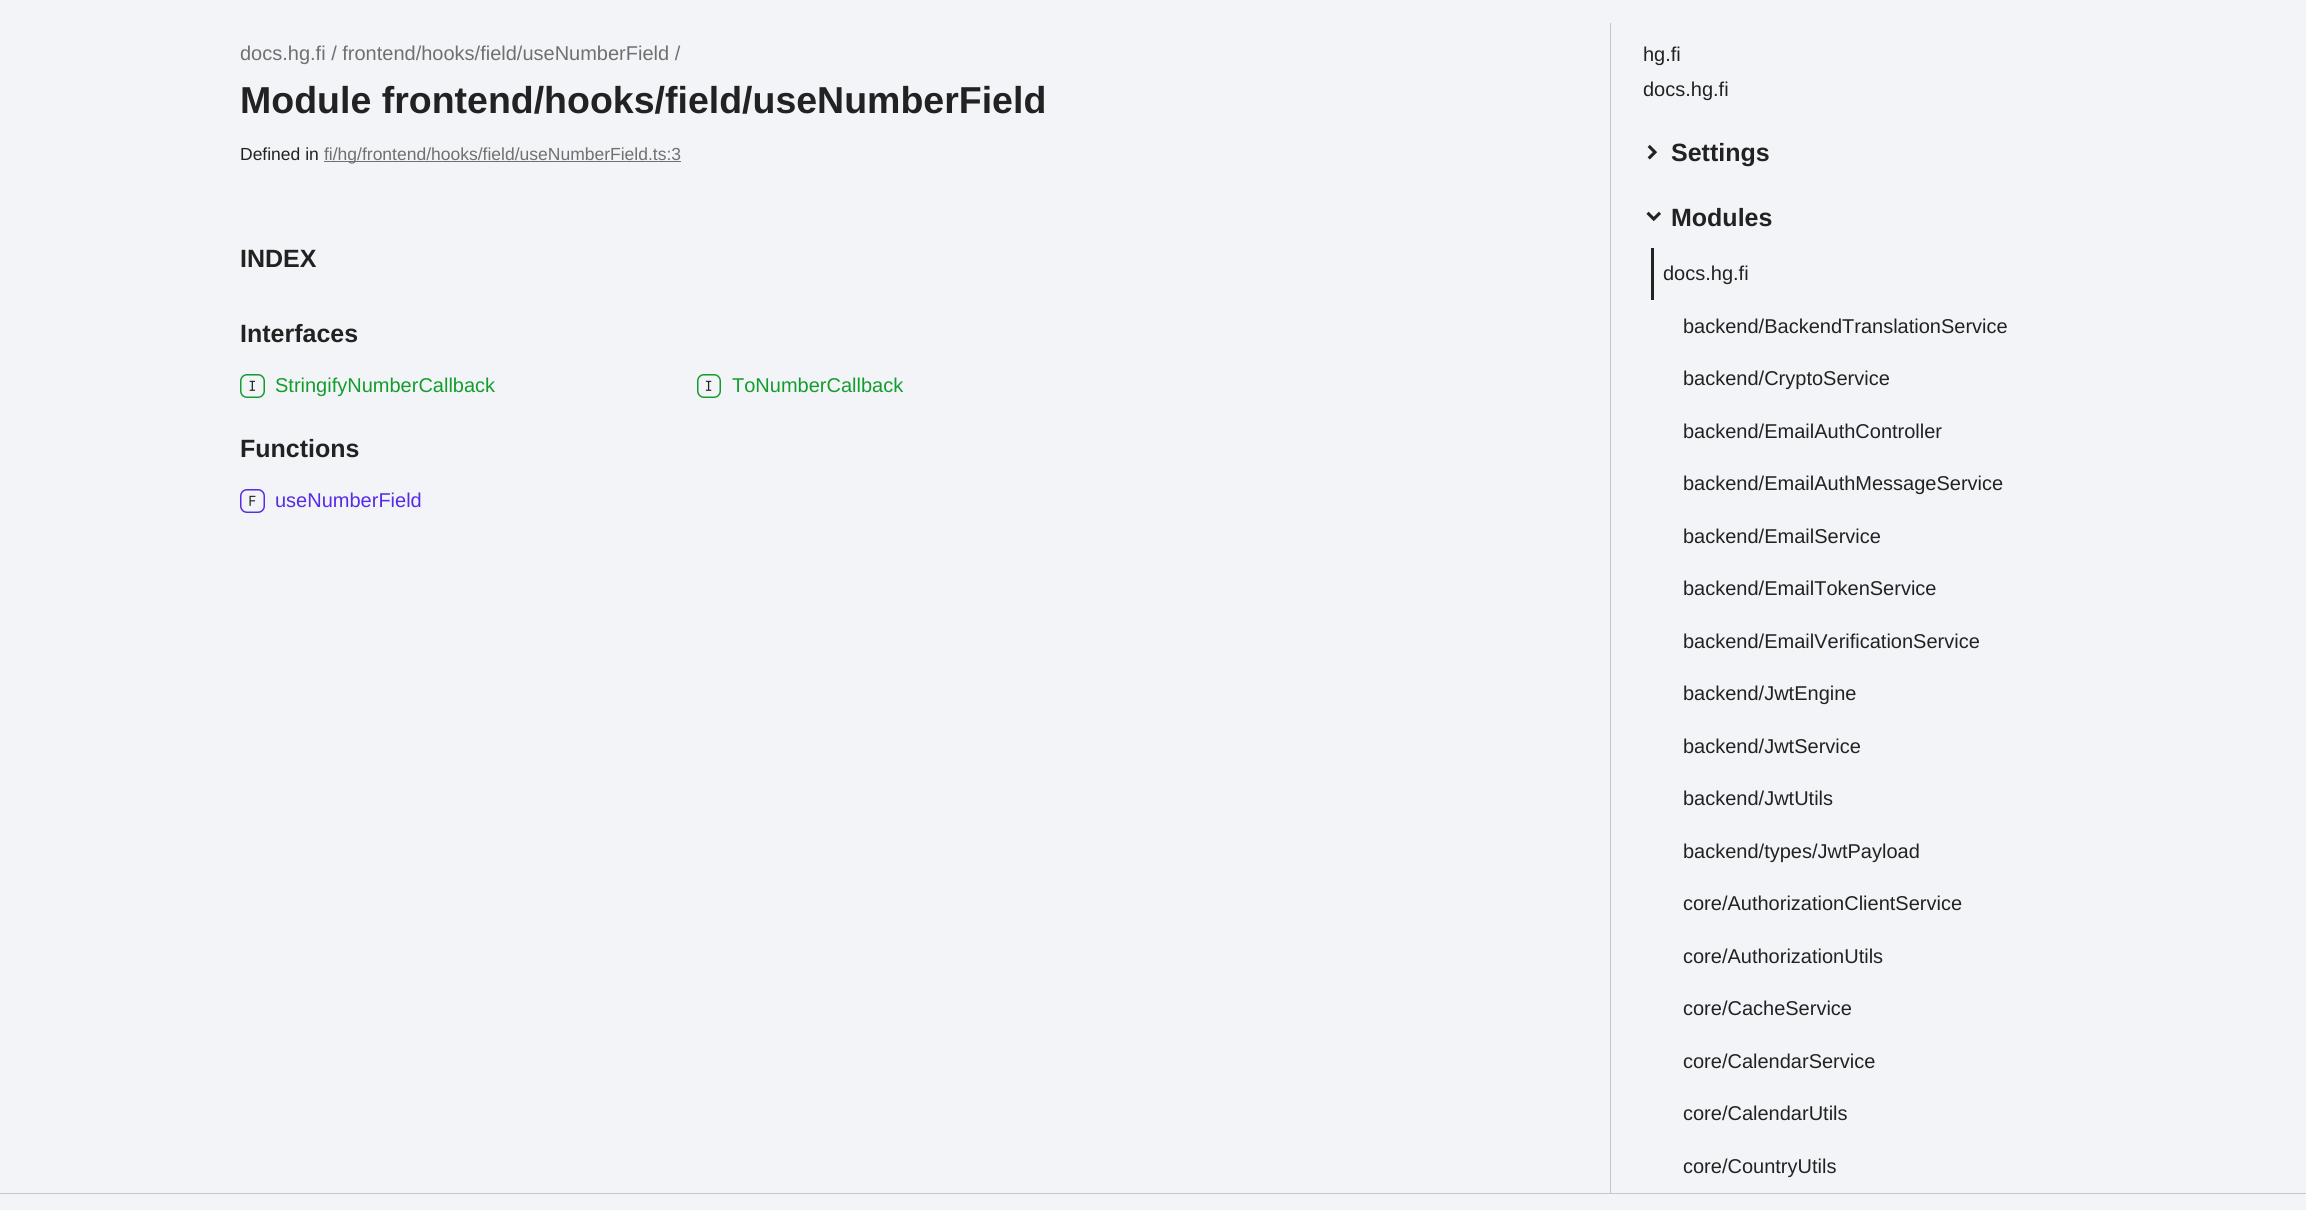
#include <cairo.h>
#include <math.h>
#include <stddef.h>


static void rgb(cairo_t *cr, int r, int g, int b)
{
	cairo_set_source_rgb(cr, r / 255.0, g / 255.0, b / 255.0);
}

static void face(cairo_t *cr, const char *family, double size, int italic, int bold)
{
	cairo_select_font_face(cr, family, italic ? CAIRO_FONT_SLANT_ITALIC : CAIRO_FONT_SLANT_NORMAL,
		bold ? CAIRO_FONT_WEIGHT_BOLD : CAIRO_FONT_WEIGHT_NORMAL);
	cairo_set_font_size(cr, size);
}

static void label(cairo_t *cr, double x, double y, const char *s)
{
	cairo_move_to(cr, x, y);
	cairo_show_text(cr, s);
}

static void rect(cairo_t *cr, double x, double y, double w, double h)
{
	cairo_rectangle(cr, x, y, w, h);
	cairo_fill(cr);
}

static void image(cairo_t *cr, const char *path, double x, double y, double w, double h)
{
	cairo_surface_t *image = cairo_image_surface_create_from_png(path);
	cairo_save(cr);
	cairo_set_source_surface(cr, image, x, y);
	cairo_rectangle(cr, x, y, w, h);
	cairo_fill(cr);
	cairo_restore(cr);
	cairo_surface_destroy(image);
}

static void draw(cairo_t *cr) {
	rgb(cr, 242, 244, 248);
	cairo_paint(cr);
	face(cr, "Liberation Sans", 20, 0, 0);
	rgb(cr, 112, 112, 112);
	label(cr, 240, 60, "docs.hg.fi / frontend/hooks/field/useNumberField /");
	face(cr, "Liberation Sans", 37.5, 0, 1);
	rgb(cr, 34, 34, 34);
	label(cr, 240, 113, "Module frontend/hooks/field/useNumberField");
	face(cr, "Liberation Sans", 17.5, 0, 0);
	label(cr, 240, 160, "Defined in");
	rgb(cr, 112, 112, 112);
	rect(cr, 324, 161, 357, 1);
	label(cr, 324, 160, "fi/hg/frontend/hooks/field/useNumberField.ts:3");
	face(cr, "Liberation Sans", 25, 0, 1);
	rgb(cr, 34, 34, 34);
	label(cr, 240, 267, "INDEX");
	label(cr, 240, 342, "Interfaces");
	image(cr, "image0.png", 240, 374, 25, 24);
	face(cr, "Liberation Sans", 20, 0, 0);
	rgb(cr, 19, 157, 44);
	label(cr, 275, 392, "StringifyNumberCallback");
	image(cr, "image1.png", 697, 374, 24, 24);
	label(cr, 732, 392, "ToNumberCallback");
	face(cr, "Liberation Sans", 25, 0, 1);
	rgb(cr, 34, 34, 34);
	label(cr, 240, 457, "Functions");
	image(cr, "image2.png", 240, 489, 25, 24);
	face(cr, "Liberation Sans", 20, 0, 0);
	rgb(cr, 87, 43, 231);
	label(cr, 275, 507, "useNumberField");
	rgb(cr, 197, 199, 201);
	rect(cr, 1610, 23, 1, 1170);
	rgb(cr, 34, 34, 34);
	label(cr, 1643, 61, "hg.fi");
	label(cr, 1643, 96, "docs.hg.fi");
	image(cr, "image3.png", 1647, 144, 11, 16);
	face(cr, "Liberation Sans", 25, 0, 1);
	label(cr, 1671, 161, "Settings");
	image(cr, "image4.png", 1646, 211, 15, 11);
	label(cr, 1671, 226, "Modules");
	rect(cr, 1651, 248, 3, 52);
	face(cr, "Liberation Sans", 20, 0, 0);
	label(cr, 1663, 280, "docs.hg.fi");
	label(cr, 1683, 333, "backend/BackendTranslationService");
	label(cr, 1683, 385, "backend/CryptoService");
	label(cr, 1683, 438, "backend/EmailAuthController");
	label(cr, 1683, 490, "backend/EmailAuthMessageService");
	label(cr, 1683, 543, "backend/EmailService");
	label(cr, 1683, 595, "backend/EmailTokenService");
	label(cr, 1683, 648, "backend/EmailVerificationService");
	label(cr, 1683, 700, "backend/JwtEngine");
	label(cr, 1683, 753, "backend/JwtService");
	label(cr, 1683, 805, "backend/JwtUtils");
	label(cr, 1683, 858, "backend/types/JwtPayload");
	label(cr, 1683, 910, "core/AuthorizationClientService");
	label(cr, 1683, 963, "core/AuthorizationUtils");
	label(cr, 1683, 1015, "core/CacheService");
	label(cr, 1683, 1068, "core/CalendarService");
	label(cr, 1683, 1120, "core/CalendarUtils");
	label(cr, 1683, 1173, "core/CountryUtils");
	rgb(cr, 197, 199, 201);
	rect(cr, 0, 1193, 2306, 1);
}

int main(void) {
	cairo_surface_t *surface = cairo_image_surface_create(CAIRO_FORMAT_RGB24, 2306, 1210);
	cairo_t *cr = cairo_create(surface);
	cairo_font_options_t *options = cairo_font_options_create();
	cairo_font_options_set_hint_metrics(options, CAIRO_HINT_METRICS_OFF);
	cairo_font_options_set_hint_style(options, CAIRO_HINT_STYLE_NONE);
	cairo_set_font_options(cr, options);
	cairo_set_miter_limit(cr, 4);
	draw(cr);
	cairo_surface_write_to_png(surface, "render.png");
	cairo_font_options_destroy(options);
	cairo_destroy(cr);
	cairo_surface_destroy(surface);
	return 0;
}
